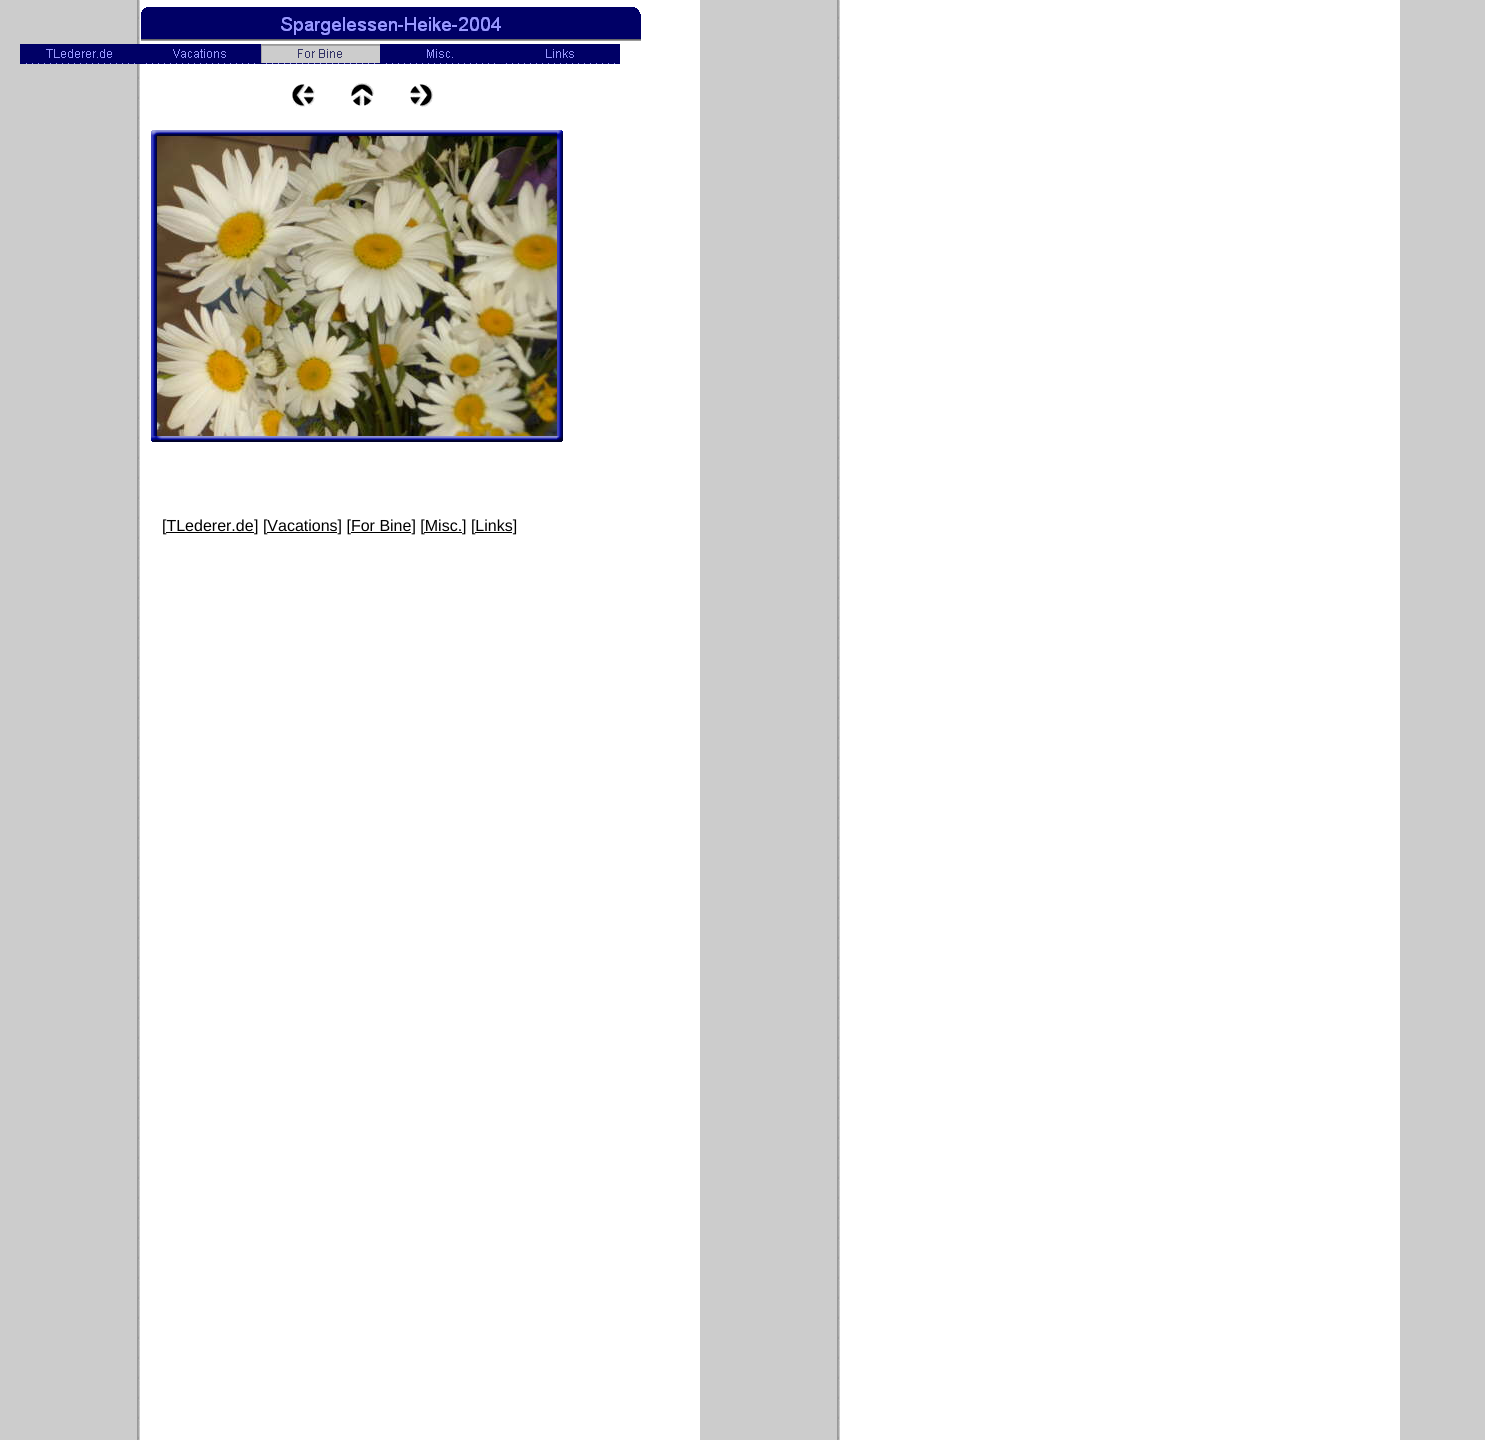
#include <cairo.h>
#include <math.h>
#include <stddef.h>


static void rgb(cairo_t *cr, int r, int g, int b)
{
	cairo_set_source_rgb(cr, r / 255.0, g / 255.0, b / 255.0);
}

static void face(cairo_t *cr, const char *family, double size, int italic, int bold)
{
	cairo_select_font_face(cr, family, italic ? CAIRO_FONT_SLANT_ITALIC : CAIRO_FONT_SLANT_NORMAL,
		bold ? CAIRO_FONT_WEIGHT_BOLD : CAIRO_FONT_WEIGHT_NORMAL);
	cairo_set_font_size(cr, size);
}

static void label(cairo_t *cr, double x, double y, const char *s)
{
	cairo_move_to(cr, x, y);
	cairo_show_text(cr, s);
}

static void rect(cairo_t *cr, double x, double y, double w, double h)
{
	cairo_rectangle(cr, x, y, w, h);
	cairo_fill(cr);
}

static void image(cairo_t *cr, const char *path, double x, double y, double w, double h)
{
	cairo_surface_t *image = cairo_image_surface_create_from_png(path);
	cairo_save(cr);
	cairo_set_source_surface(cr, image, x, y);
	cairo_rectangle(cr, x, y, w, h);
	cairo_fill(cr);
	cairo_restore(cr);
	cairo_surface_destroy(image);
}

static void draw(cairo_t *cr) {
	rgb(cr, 255, 255, 255);
	cairo_paint(cr);
	image(cr, "image0.png", 0, 0, 1485, 1440);
	image(cr, "image1.png", 141, 7, 500, 34);
	image(cr, "image2.png", 20, 44, 120, 20);
	image(cr, "image3.png", 140, 44, 120, 20);
	image(cr, "image4.png", 260, 44, 120, 20);
	image(cr, "image5.png", 380, 44, 120, 20);
	image(cr, "image6.png", 500, 44, 120, 20);
	image(cr, "image7.png", 292, 84, 23, 23);
	image(cr, "image8.png", 351, 83, 23, 23);
	image(cr, "image9.png", 410, 84, 23, 23);
	image(cr, "image10.png", 151, 130, 6, 6);
	image(cr, "image11.png", 157, 130, 400, 6);
	image(cr, "image12.png", 557, 130, 6, 6);
	image(cr, "image13.png", 151, 136, 6, 300);
	image(cr, "image14.png", 157, 136, 400, 300);
	image(cr, "image15.png", 557, 136, 6, 300);
	image(cr, "image16.png", 151, 436, 6, 6);
	image(cr, "image17.png", 157, 436, 400, 6);
	image(cr, "image18.png", 557, 436, 6, 6);
	face(cr, "Liberation Sans", 16, 0, 0);
	rgb(cr, 0, 0, 0);
	label(cr, 162, 531, "[TLederer.de");
	rect(cr, 166, 532, 88, 1);
	label(cr, 254, 531, "] [Vacations] [For Bine] [Misc.");
	rect(cr, 424, 532, 38, 1);
	label(cr, 462, 531, "] [Links]");
	rect(cr, 267, 532, 70, 1);
	rect(cr, 351, 532, 60, 1);
	rect(cr, 475, 532, 37, 1);
}

int main(void) {
	cairo_surface_t *surface = cairo_image_surface_create(CAIRO_FORMAT_RGB24, 1485, 1440);
	cairo_t *cr = cairo_create(surface);
	cairo_font_options_t *options = cairo_font_options_create();
	cairo_font_options_set_hint_metrics(options, CAIRO_HINT_METRICS_OFF);
	cairo_font_options_set_hint_style(options, CAIRO_HINT_STYLE_NONE);
	cairo_set_font_options(cr, options);
	cairo_set_miter_limit(cr, 4);
	draw(cr);
	cairo_surface_write_to_png(surface, "render.png");
	cairo_font_options_destroy(options);
	cairo_destroy(cr);
	cairo_surface_destroy(surface);
	return 0;
}
